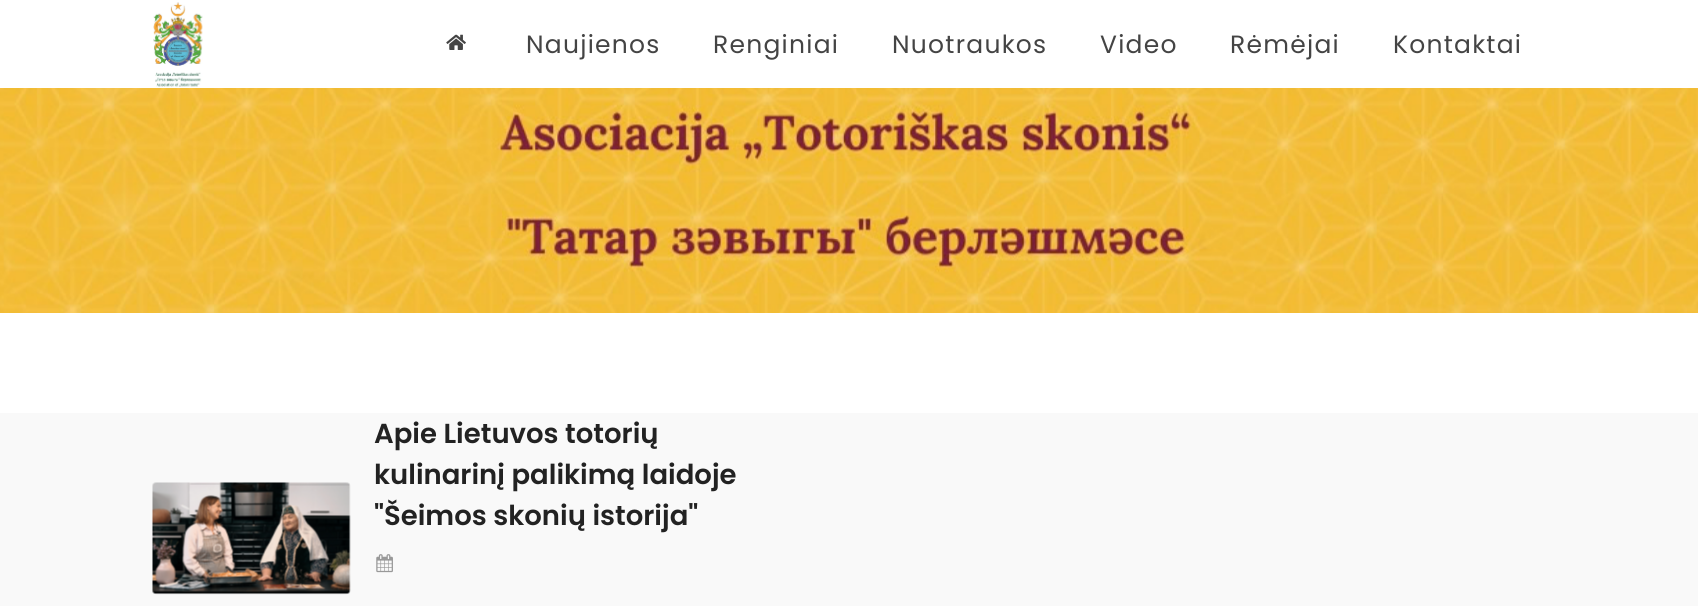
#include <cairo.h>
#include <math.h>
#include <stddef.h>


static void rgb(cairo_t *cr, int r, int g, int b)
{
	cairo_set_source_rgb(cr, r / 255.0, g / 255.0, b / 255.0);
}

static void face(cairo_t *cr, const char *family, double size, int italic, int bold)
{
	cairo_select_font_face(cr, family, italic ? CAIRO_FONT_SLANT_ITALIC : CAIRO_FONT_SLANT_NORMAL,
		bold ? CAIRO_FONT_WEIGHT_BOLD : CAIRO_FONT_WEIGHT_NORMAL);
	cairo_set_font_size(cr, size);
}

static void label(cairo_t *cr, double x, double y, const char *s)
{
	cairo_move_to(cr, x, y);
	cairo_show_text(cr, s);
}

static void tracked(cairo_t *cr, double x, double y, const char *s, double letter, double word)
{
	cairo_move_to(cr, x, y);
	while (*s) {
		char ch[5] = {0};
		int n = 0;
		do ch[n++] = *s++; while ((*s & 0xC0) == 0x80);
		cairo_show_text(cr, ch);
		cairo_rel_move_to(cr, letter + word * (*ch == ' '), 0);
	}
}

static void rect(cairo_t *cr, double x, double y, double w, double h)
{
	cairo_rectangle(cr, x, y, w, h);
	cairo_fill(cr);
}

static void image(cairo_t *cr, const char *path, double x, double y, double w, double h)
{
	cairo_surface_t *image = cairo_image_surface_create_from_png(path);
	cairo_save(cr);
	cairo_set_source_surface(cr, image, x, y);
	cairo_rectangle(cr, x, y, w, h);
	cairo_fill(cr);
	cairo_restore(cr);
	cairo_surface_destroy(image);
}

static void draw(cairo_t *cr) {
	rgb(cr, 255, 255, 255);
	cairo_paint(cr);
	image(cr, "image0.png", 153, 2, 50, 85);
	image(cr, "image1.png", 446, 34, 20, 16);
	face(cr, "Poppins", 25, 0, 0);
	rgb(cr, 68, 68, 68);
	tracked(cr, 526, 53, "Naujienos", 1.25, 0);
	tracked(cr, 713, 53, "Renginiai", 1.25, 0);
	tracked(cr, 892, 53, "Nuotraukos", 1.25, 0);
	tracked(cr, 1100, 53, "Video", 1.25, 0);
	tracked(cr, 1230, 53, "Rėmėjai", 1.25, 0);
	tracked(cr, 1393, 53, "Kontaktai", 1.25, 0);
	image(cr, "image2.png", 0, 88, 1698, 225);
	rgb(cr, 249, 249, 249);
	rect(cr, 0, 413, 1698, 193);
	image(cr, "image3.png", 152, 482, 199, 113);
	face(cr, "Poppins SemiBold", 27.5, 0, 0);
	rgb(cr, 34, 34, 34);
	label(cr, 374, 443, "Apie Lietuvos totorių");
	label(cr, 374, 484, "kulinarinį palikimą laidoje");
	label(cr, 374, 525, "\"Šeimos skonių istorija\"");
	image(cr, "image4.png", 376, 554, 17, 19);
}

int main(void) {
	cairo_surface_t *surface = cairo_image_surface_create(CAIRO_FORMAT_RGB24, 1698, 606);
	cairo_t *cr = cairo_create(surface);
	cairo_font_options_t *options = cairo_font_options_create();
	cairo_font_options_set_hint_metrics(options, CAIRO_HINT_METRICS_OFF);
	cairo_font_options_set_hint_style(options, CAIRO_HINT_STYLE_NONE);
	cairo_set_font_options(cr, options);
	cairo_set_miter_limit(cr, 4);
	draw(cr);
	cairo_surface_write_to_png(surface, "render.png");
	cairo_font_options_destroy(options);
	cairo_destroy(cr);
	cairo_surface_destroy(surface);
	return 0;
}
